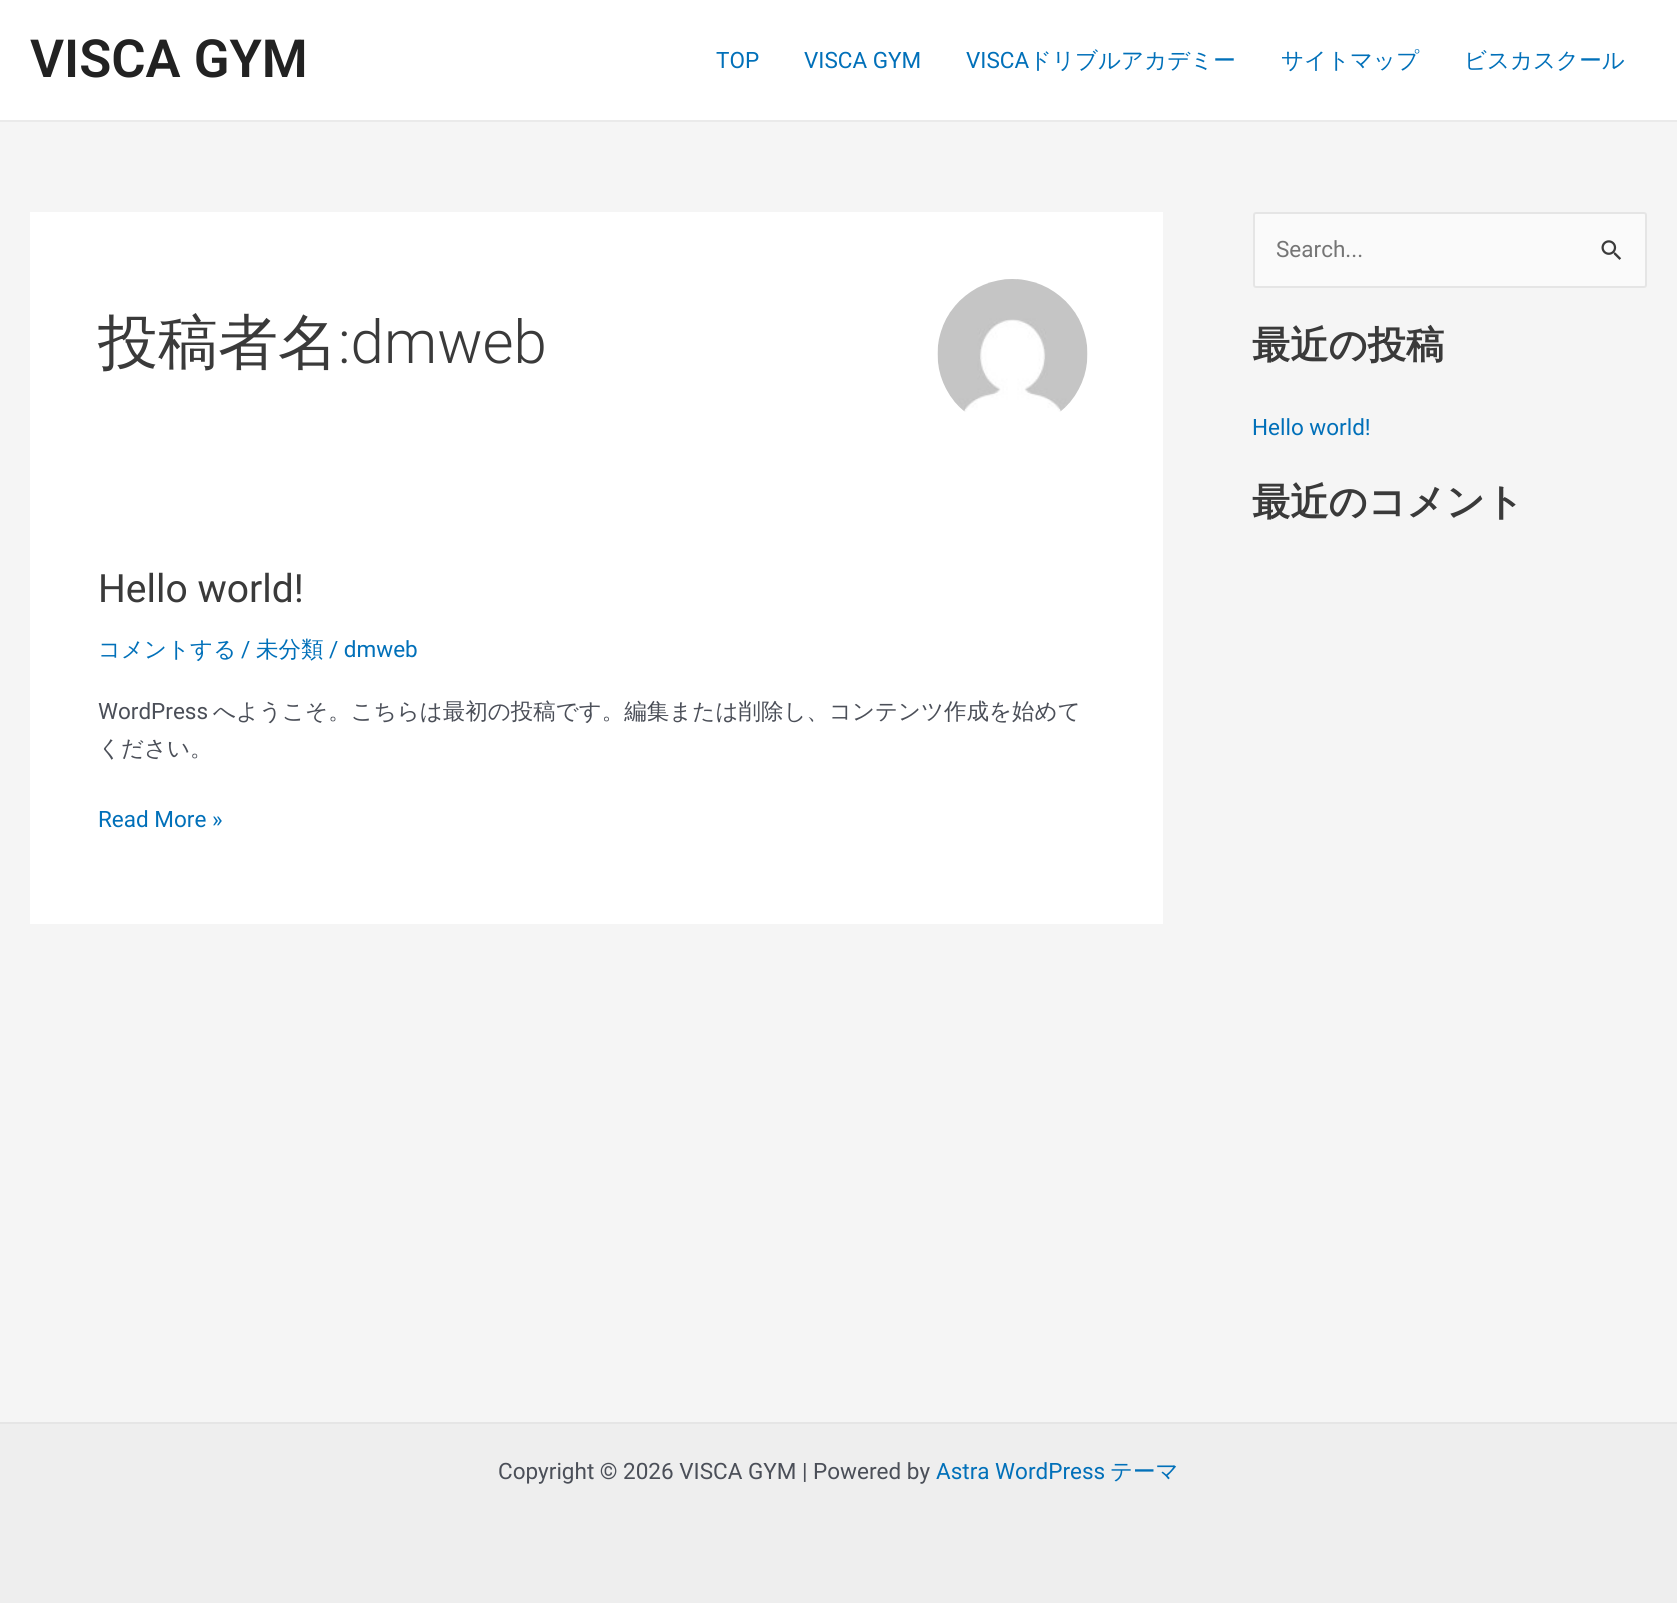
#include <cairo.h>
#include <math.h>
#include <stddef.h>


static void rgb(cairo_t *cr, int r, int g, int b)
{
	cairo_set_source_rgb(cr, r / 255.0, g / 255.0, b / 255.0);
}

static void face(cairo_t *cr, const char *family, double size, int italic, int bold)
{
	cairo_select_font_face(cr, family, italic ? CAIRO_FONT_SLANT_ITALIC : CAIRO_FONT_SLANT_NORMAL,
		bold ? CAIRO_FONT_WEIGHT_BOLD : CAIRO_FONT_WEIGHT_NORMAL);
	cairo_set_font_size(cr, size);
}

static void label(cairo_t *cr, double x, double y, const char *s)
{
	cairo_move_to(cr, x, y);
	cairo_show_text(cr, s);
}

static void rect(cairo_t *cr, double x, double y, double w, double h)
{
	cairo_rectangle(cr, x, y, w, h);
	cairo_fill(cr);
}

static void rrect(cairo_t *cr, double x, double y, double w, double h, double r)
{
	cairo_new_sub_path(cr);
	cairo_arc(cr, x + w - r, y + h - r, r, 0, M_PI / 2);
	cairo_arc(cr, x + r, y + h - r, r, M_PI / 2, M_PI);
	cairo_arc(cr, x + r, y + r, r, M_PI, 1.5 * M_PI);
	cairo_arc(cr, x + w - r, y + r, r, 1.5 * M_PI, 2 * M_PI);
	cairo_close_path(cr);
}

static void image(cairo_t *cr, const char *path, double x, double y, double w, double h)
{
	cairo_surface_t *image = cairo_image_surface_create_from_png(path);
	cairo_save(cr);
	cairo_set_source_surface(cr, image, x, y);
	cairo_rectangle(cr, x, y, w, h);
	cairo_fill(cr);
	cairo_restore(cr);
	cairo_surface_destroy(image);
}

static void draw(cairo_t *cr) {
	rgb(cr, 245, 245, 245);
	cairo_paint(cr);
	rgb(cr, 255, 255, 255);
	rect(cr, 0, 0, 1677, 120);
	rgb(cr, 234, 234, 234);
	rect(cr, 0, 120, 1677, 2);
	face(cr, "Roboto SemiBold", 52.5, 0, 0);
	rgb(cr, 34, 34, 34);
	label(cr, 30, 77, "VISCA GYM");
	face(cr, "Roboto", 22.5, 0, 0);
	rgb(cr, 1, 112, 185);
	label(cr, 716, 68, "TOP");
	label(cr, 804, 68, "VISCA GYM");
	label(cr, 966, 68, "VISCA");
	face(cr, "WenQuanYi Zen Hei Medium", 22.5, 0, 0);
	label(cr, 1029, 68, "ドリブルアカデミー");
	label(cr, 1281, 68, "サイトマップ");
	label(cr, 1464, 68, "ビスカスクール");
	rgb(cr, 255, 255, 255);
	rect(cr, 30, 212, 1133, 712);
	face(cr, "WenQuanYi Zen Hei Medium", 60, 0, 0);
	rgb(cr, 58, 58, 58);
	label(cr, 98, 363, "投稿者名");
	face(cr, "Roboto Light", 60, 0, 0);
	label(cr, 338, 363, ":dmweb");
	image(cr, "image0.png", 937, 279, 151, 133);
	face(cr, "Roboto", 39, 0, 0);
	label(cr, 98, 602, "Hello world!");
	face(cr, "WenQuanYi Zen Hei Medium", 22.5, 0, 0);
	rgb(cr, 1, 112, 185);
	label(cr, 98, 657, "コメントする");
	face(cr, "Roboto", 22.5, 0, 0);
	label(cr, 241, 657, "/");
	face(cr, "WenQuanYi Zen Hei Medium", 22.5, 0, 0);
	label(cr, 256, 657, "未分類");
	face(cr, "Roboto", 22.5, 0, 0);
	label(cr, 329, 657, "/ dmweb");
	rgb(cr, 75, 79, 88);
	label(cr, 98, 719, "WordPress");
	face(cr, "WenQuanYi Zen Hei Medium", 22.5, 0, 0);
	label(cr, 213, 719, "へようこそ。こちらは最初の投稿です。編集または削除し、コンテンツ作成を始めて");
	label(cr, 98, 756, "ください。");
	face(cr, "Roboto", 22.5, 0, 0);
	rgb(cr, 1, 112, 185);
	label(cr, 98, 827, "Read More »");
	rgb(cr, 250, 250, 250);
	rrect(cr, 1254, 213, 392, 74, 2);
	cairo_fill_preserve(cr);
	rgb(cr, 229, 229, 229);
	cairo_stroke(cr);
	rgb(cr, 117, 117, 117);
	label(cr, 1276, 257, "Search...");
	image(cr, "image1.png", 1601, 240, 21, 20);
	face(cr, "WenQuanYi Zen Hei", 38.25, 0, 1);
	rgb(cr, 58, 58, 58);
	label(cr, 1252, 358, "最近の投稿");
	face(cr, "Roboto", 22.5, 0, 0);
	rgb(cr, 1, 112, 185);
	label(cr, 1252, 435, "Hello world!");
	face(cr, "WenQuanYi Zen Hei", 38.25, 0, 1);
	rgb(cr, 58, 58, 58);
	label(cr, 1252, 515, "最近のコメント");
	rgb(cr, 238, 238, 238);
	rect(cr, 0, 1424, 1677, 179);
	rgb(cr, 229, 229, 229);
	rect(cr, 0, 1422, 1677, 2);
	face(cr, "Roboto", 22.5, 0, 0);
	rgb(cr, 75, 79, 88);
	label(cr, 498, 1479, "Copyright © 2026 VISCA GYM | Powered by");
	rgb(cr, 1, 112, 185);
	label(cr, 936, 1479, "Astra WordPress");
	face(cr, "WenQuanYi Zen Hei Medium", 22.5, 0, 0);
	label(cr, 1110, 1479, "テーマ");
}

int main(void) {
	cairo_surface_t *surface = cairo_image_surface_create(CAIRO_FORMAT_RGB24, 1677, 1603);
	cairo_t *cr = cairo_create(surface);
	cairo_font_options_t *options = cairo_font_options_create();
	cairo_font_options_set_hint_metrics(options, CAIRO_HINT_METRICS_OFF);
	cairo_font_options_set_hint_style(options, CAIRO_HINT_STYLE_NONE);
	cairo_set_font_options(cr, options);
	cairo_set_miter_limit(cr, 4);
	draw(cr);
	cairo_surface_write_to_png(surface, "render.png");
	cairo_font_options_destroy(options);
	cairo_destroy(cr);
	cairo_surface_destroy(surface);
	return 0;
}
